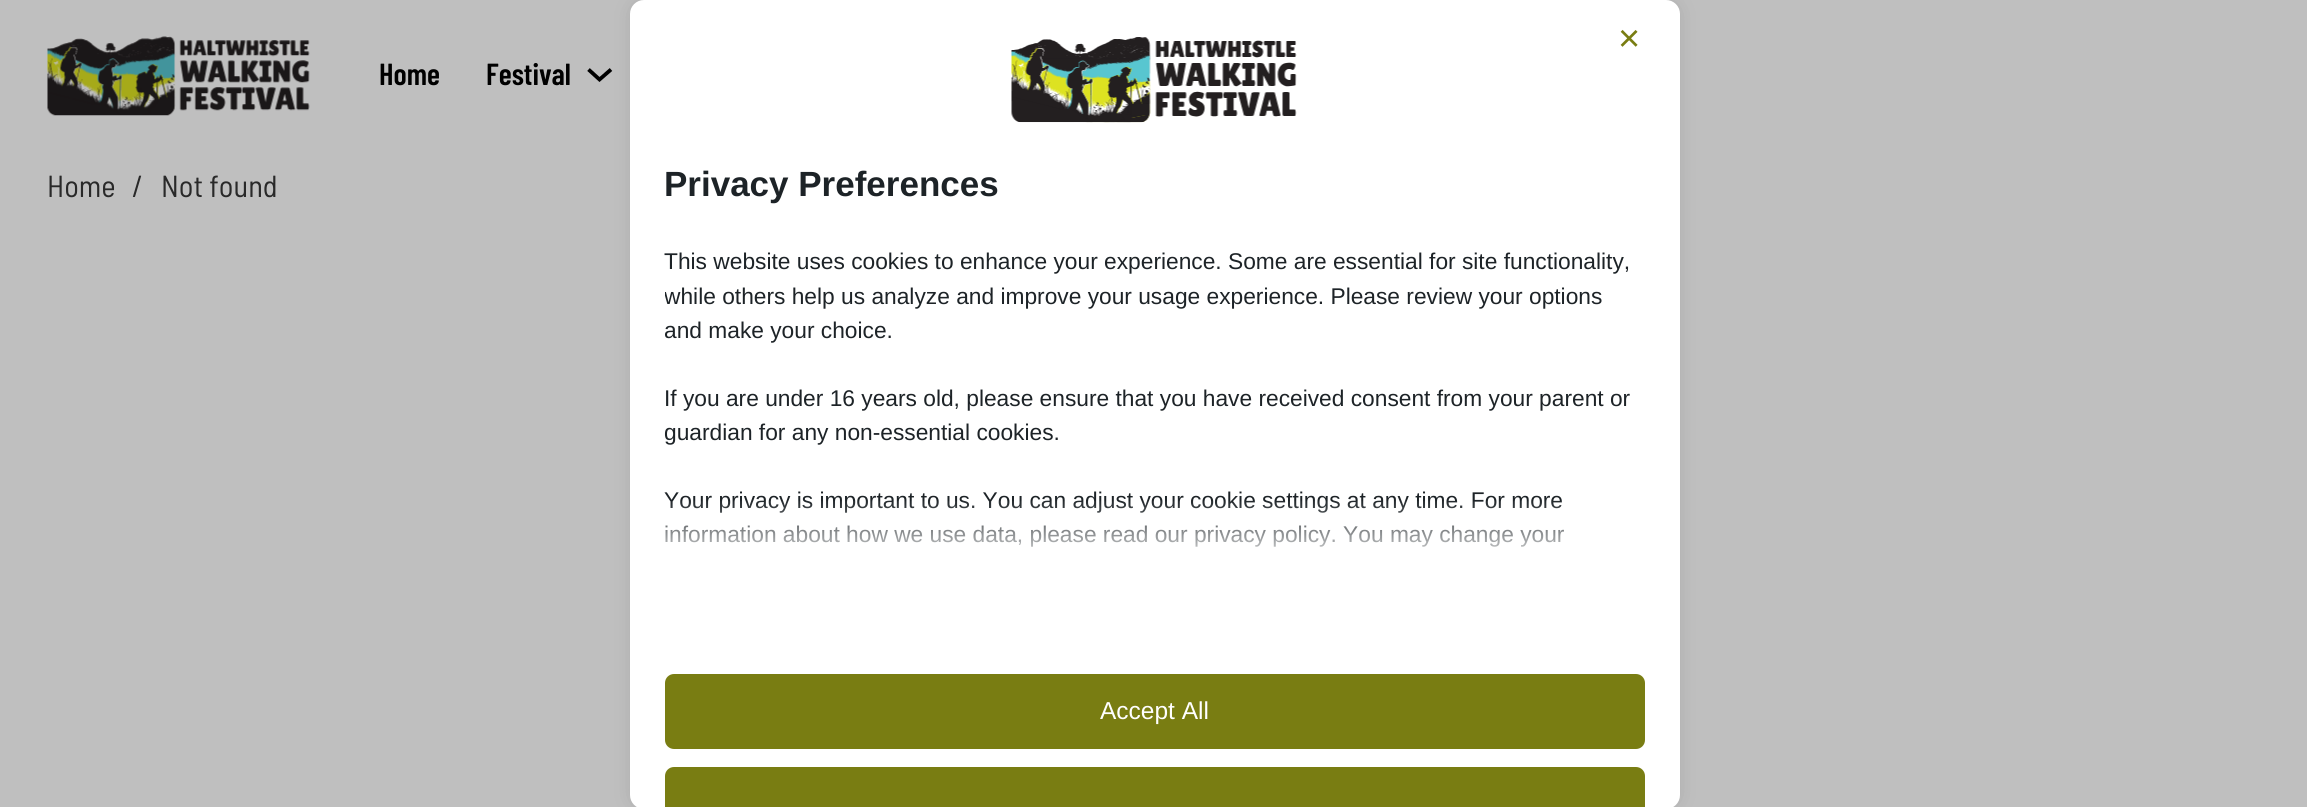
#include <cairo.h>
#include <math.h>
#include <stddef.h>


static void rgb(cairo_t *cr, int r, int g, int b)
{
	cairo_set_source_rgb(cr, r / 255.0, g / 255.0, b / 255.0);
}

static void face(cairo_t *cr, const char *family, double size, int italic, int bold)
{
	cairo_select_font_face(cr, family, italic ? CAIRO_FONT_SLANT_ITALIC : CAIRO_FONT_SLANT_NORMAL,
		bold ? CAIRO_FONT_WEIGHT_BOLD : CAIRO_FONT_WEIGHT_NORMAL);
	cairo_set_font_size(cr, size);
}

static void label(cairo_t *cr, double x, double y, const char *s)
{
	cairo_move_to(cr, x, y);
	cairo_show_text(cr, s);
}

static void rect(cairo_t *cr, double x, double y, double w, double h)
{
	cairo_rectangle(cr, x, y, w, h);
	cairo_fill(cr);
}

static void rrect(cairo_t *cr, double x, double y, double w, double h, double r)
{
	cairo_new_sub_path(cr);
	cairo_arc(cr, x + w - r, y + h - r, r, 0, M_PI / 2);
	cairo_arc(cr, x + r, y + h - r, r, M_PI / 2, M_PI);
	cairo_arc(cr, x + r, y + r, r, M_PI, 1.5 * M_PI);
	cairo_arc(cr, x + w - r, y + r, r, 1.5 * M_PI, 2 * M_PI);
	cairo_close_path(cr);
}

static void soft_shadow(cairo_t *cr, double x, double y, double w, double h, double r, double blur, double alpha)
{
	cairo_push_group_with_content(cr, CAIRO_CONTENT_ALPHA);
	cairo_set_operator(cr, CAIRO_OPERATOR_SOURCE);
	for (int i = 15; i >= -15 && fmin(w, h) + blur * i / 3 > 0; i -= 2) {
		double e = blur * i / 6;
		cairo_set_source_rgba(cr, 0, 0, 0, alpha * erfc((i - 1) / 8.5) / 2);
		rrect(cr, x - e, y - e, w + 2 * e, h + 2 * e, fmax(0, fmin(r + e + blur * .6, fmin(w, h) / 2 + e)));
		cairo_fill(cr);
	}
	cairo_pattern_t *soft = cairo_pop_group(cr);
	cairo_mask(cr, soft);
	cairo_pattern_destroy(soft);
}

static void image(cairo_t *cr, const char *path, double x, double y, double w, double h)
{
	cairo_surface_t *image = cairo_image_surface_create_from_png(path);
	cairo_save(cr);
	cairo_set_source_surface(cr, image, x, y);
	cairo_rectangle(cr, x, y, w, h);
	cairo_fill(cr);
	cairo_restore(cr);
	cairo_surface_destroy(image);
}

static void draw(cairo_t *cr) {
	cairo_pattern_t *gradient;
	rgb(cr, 191, 191, 191);
	cairo_paint(cr);
	image(cr, "image0.png", 47, 36, 263, 80);
	face(cr, "Barlow Condensed SemiBold", 30.5, 0, 0);
	rgb(cr, 0, 0, 0);
	label(cr, 379, 85, "Home");
	label(cr, 486, 85, "Festival");
	cairo_new_path(cr);
	cairo_move_to(cr, 588.5, 69.5);
	cairo_line_to(cr, 599.5, 79.5);
	cairo_line_to(cr, 611, 69.5);
	cairo_set_line_width(cr, 3.8);
	cairo_stroke(cr);
	rgb(cr, 0, 0, 0);
	soft_shadow(cr, 630, 0, 1050, 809, 14, 9, 0.1);
	rgb(cr, 255, 255, 255);
	rrect(cr, 630, 0, 1050, 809, 14);
	cairo_fill(cr);
	image(cr, "image1.png", 1011, 37, 286, 86);
	face(cr, "Liberation Sans", 38, 0, 0);
	rgb(cr, 121, 125, 18);
	label(cr, 1618, 51, "×");
	face(cr, "Liberation Sans", 35, 0, 1);
	rgb(cr, 29, 35, 39);
	label(cr, 664, 196, "Privacy Preferences");
	face(cr, "Liberation Sans", 22.75, 0, 0);
	label(cr, 664, 269, "This website uses cookies to enhance your experience. Some are essential for site functionality,");
	cairo_save(cr);
	cairo_rectangle(cr, 665, 245, 980, 324);
	cairo_clip(cr);
	label(cr, 664, 304, "while others help us analyze and improve your usage experience. Please review your options");
	cairo_restore(cr);
	label(cr, 664, 338, "and make your choice.");
	label(cr, 664, 406, "If you are under 16 years old, please ensure that you have received consent from your parent or");
	label(cr, 664, 440, "guardian for any non-essential cookies.");
	label(cr, 664, 508, "Your privacy is important to us. You can adjust your cookie settings at any time. For more");
	label(cr, 664, 542, "information about how we use data, please read our privacy policy. You may change your");
	gradient = cairo_pattern_create_linear(1155, 569, 1155, 499);
	cairo_pattern_add_color_stop_rgba(gradient, 0, 1, 1, 1, 1);
	cairo_pattern_add_color_stop_rgba(gradient, 1, 1, 1, 1, 0);
	cairo_set_source(cr, gradient);
	cairo_pattern_destroy(gradient);
	rect(cr, 665, 501, 900, 46);
	rgb(cr, 121, 125, 18);
	rrect(cr, 666, 675, 978, 73, 8);
	cairo_fill_preserve(cr);
	cairo_set_line_width(cr, 2);
	cairo_stroke(cr);
	face(cr, "Liberation Sans", 24.5, 0, 0);
	rgb(cr, 255, 255, 255);
	label(cr, 1100, 719, "Accept All");
	rgb(cr, 121, 125, 18);
	rrect(cr, 666, 768, 978, 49, 8);
	cairo_fill_preserve(cr);
	cairo_stroke(cr);
	face(cr, "Barlow Semi Condensed", 30.5, 0, 0);
	rgb(cr, 41, 41, 41);
	label(cr, 47, 197, "Home");
	label(cr, 132, 197, "/");
	label(cr, 161, 197, "Not found");
}

int main(void) {
	cairo_surface_t *surface = cairo_image_surface_create(CAIRO_FORMAT_RGB24, 2307, 807);
	cairo_t *cr = cairo_create(surface);
	cairo_font_options_t *options = cairo_font_options_create();
	cairo_font_options_set_hint_metrics(options, CAIRO_HINT_METRICS_OFF);
	cairo_font_options_set_hint_style(options, CAIRO_HINT_STYLE_NONE);
	cairo_set_font_options(cr, options);
	cairo_set_miter_limit(cr, 4);
	draw(cr);
	cairo_surface_write_to_png(surface, "render.png");
	cairo_font_options_destroy(options);
	cairo_destroy(cr);
	cairo_surface_destroy(surface);
	return 0;
}
